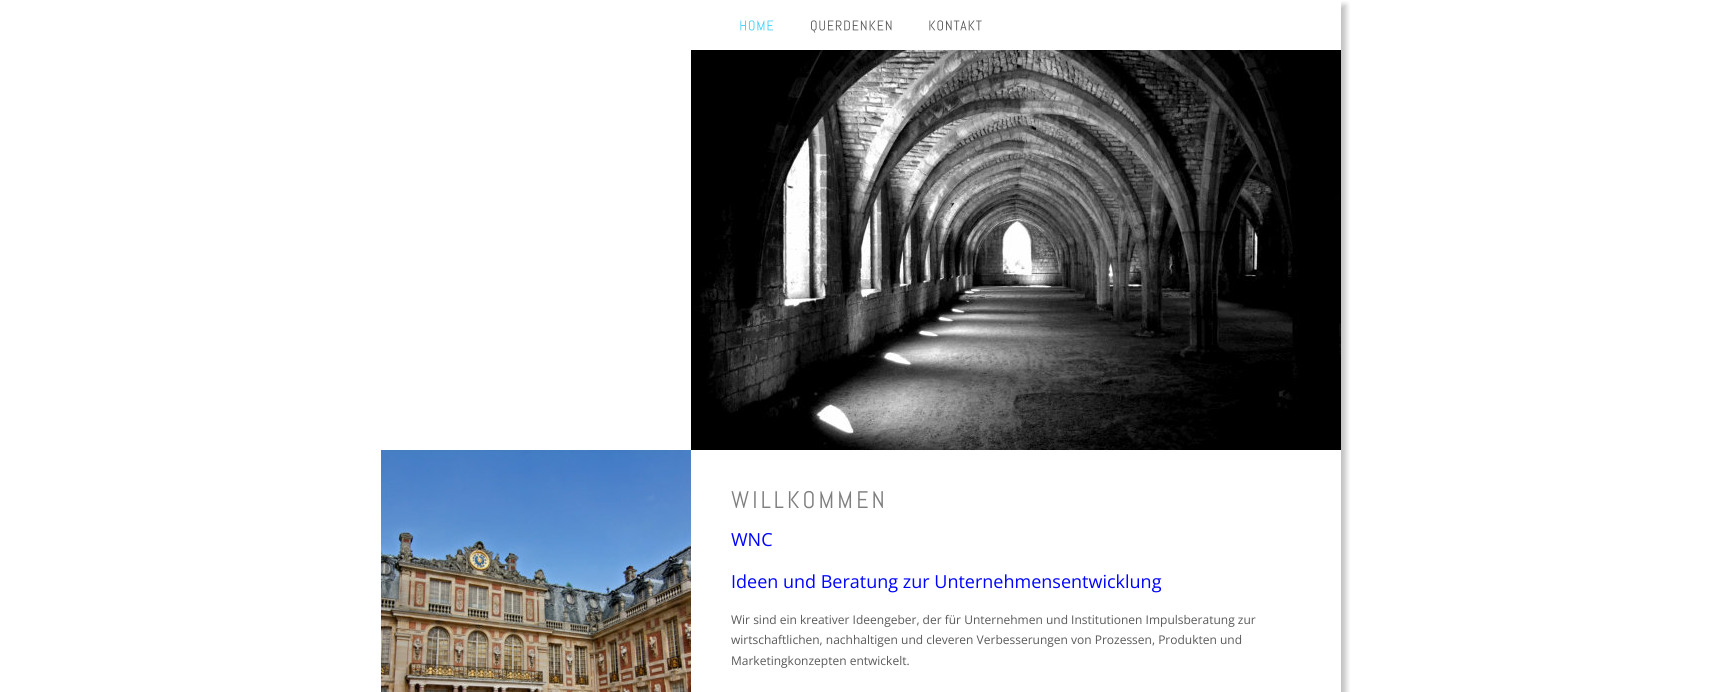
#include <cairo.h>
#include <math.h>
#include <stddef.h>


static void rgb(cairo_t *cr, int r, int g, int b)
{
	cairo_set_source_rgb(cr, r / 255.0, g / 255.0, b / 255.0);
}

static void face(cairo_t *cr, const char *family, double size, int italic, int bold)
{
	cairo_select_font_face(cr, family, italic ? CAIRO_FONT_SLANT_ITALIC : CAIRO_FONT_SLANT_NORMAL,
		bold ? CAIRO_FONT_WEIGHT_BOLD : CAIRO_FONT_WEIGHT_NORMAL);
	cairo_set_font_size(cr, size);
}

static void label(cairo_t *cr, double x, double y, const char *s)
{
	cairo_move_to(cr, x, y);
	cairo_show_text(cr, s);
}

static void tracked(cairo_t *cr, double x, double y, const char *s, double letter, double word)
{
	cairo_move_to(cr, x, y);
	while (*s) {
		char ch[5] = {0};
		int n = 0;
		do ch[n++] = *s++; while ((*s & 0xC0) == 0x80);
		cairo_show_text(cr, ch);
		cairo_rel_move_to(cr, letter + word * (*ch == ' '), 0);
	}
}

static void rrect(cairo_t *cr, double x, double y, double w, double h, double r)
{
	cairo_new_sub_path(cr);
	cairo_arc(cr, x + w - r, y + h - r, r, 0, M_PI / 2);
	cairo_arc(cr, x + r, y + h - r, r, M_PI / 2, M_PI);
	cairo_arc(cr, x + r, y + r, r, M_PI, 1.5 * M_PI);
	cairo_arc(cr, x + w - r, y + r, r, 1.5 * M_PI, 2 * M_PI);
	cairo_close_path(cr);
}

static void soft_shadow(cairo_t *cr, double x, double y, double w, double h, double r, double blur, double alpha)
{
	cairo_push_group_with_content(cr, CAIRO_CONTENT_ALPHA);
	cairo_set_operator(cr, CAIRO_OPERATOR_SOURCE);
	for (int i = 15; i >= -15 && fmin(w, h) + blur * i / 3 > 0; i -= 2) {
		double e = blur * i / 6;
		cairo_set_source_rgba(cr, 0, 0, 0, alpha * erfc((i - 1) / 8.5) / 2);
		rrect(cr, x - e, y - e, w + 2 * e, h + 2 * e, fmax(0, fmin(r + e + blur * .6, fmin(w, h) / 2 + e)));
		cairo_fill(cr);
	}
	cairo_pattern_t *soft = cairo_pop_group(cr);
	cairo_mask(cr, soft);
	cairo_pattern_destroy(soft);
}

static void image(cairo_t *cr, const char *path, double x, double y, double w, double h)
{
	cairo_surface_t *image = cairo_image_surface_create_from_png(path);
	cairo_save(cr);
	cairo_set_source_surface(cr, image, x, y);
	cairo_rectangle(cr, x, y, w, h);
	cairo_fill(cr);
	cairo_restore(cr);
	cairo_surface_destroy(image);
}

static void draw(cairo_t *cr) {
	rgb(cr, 255, 255, 255);
	cairo_paint(cr);
	cairo_save(cr);
	cairo_rectangle(cr, 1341, 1, 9, 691);
	cairo_clip(cr);
	rgb(cr, 0, 0, 0);
	soft_shadow(cr, 386, 5, 960, 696, 0, 3, 0.25);
	cairo_restore(cr);
	image(cr, "image0.png", 740, 20, 34, 11);
	image(cr, "image1.png", 811, 20, 81, 13);
	image(cr, "image2.png", 929, 20, 53, 11);
	image(cr, "image3.png", 691, 50, 650, 400);
	image(cr, "image4.png", 381, 450, 310, 242);
	face(cr, "Abel", 24, 0, 0);
	rgb(cr, 127, 127, 127);
	tracked(cr, 731, 508, "WILLKOMMEN", 3.1, 0);
	face(cr, "Open Sans", 18, 0, 0);
	rgb(cr, 0, 3, 255);
	label(cr, 731, 546, "WNC");
	label(cr, 731, 588, "Ideen und Beratung zur Unternehmensentwicklung");
	face(cr, "Open Sans", 12, 0, 0);
	rgb(cr, 89, 89, 89);
	label(cr, 731, 624, "Wir sind ein kreativer Ideengeber, der für Unternehmen und Institutionen Impulsberatung zur");
	label(cr, 731, 644, "wirtschaftlichen, nachhaltigen und cleveren Verbesserungen von Prozessen, Produkten und");
	label(cr, 731, 665, "Marketingkonzepten entwickelt.");
}

int main(void) {
	cairo_surface_t *surface = cairo_image_surface_create(CAIRO_FORMAT_RGB24, 1722, 692);
	cairo_t *cr = cairo_create(surface);
	cairo_font_options_t *options = cairo_font_options_create();
	cairo_font_options_set_hint_metrics(options, CAIRO_HINT_METRICS_OFF);
	cairo_font_options_set_hint_style(options, CAIRO_HINT_STYLE_NONE);
	cairo_set_font_options(cr, options);
	cairo_set_miter_limit(cr, 4);
	draw(cr);
	cairo_surface_write_to_png(surface, "render.png");
	cairo_font_options_destroy(options);
	cairo_destroy(cr);
	cairo_surface_destroy(surface);
	return 0;
}
